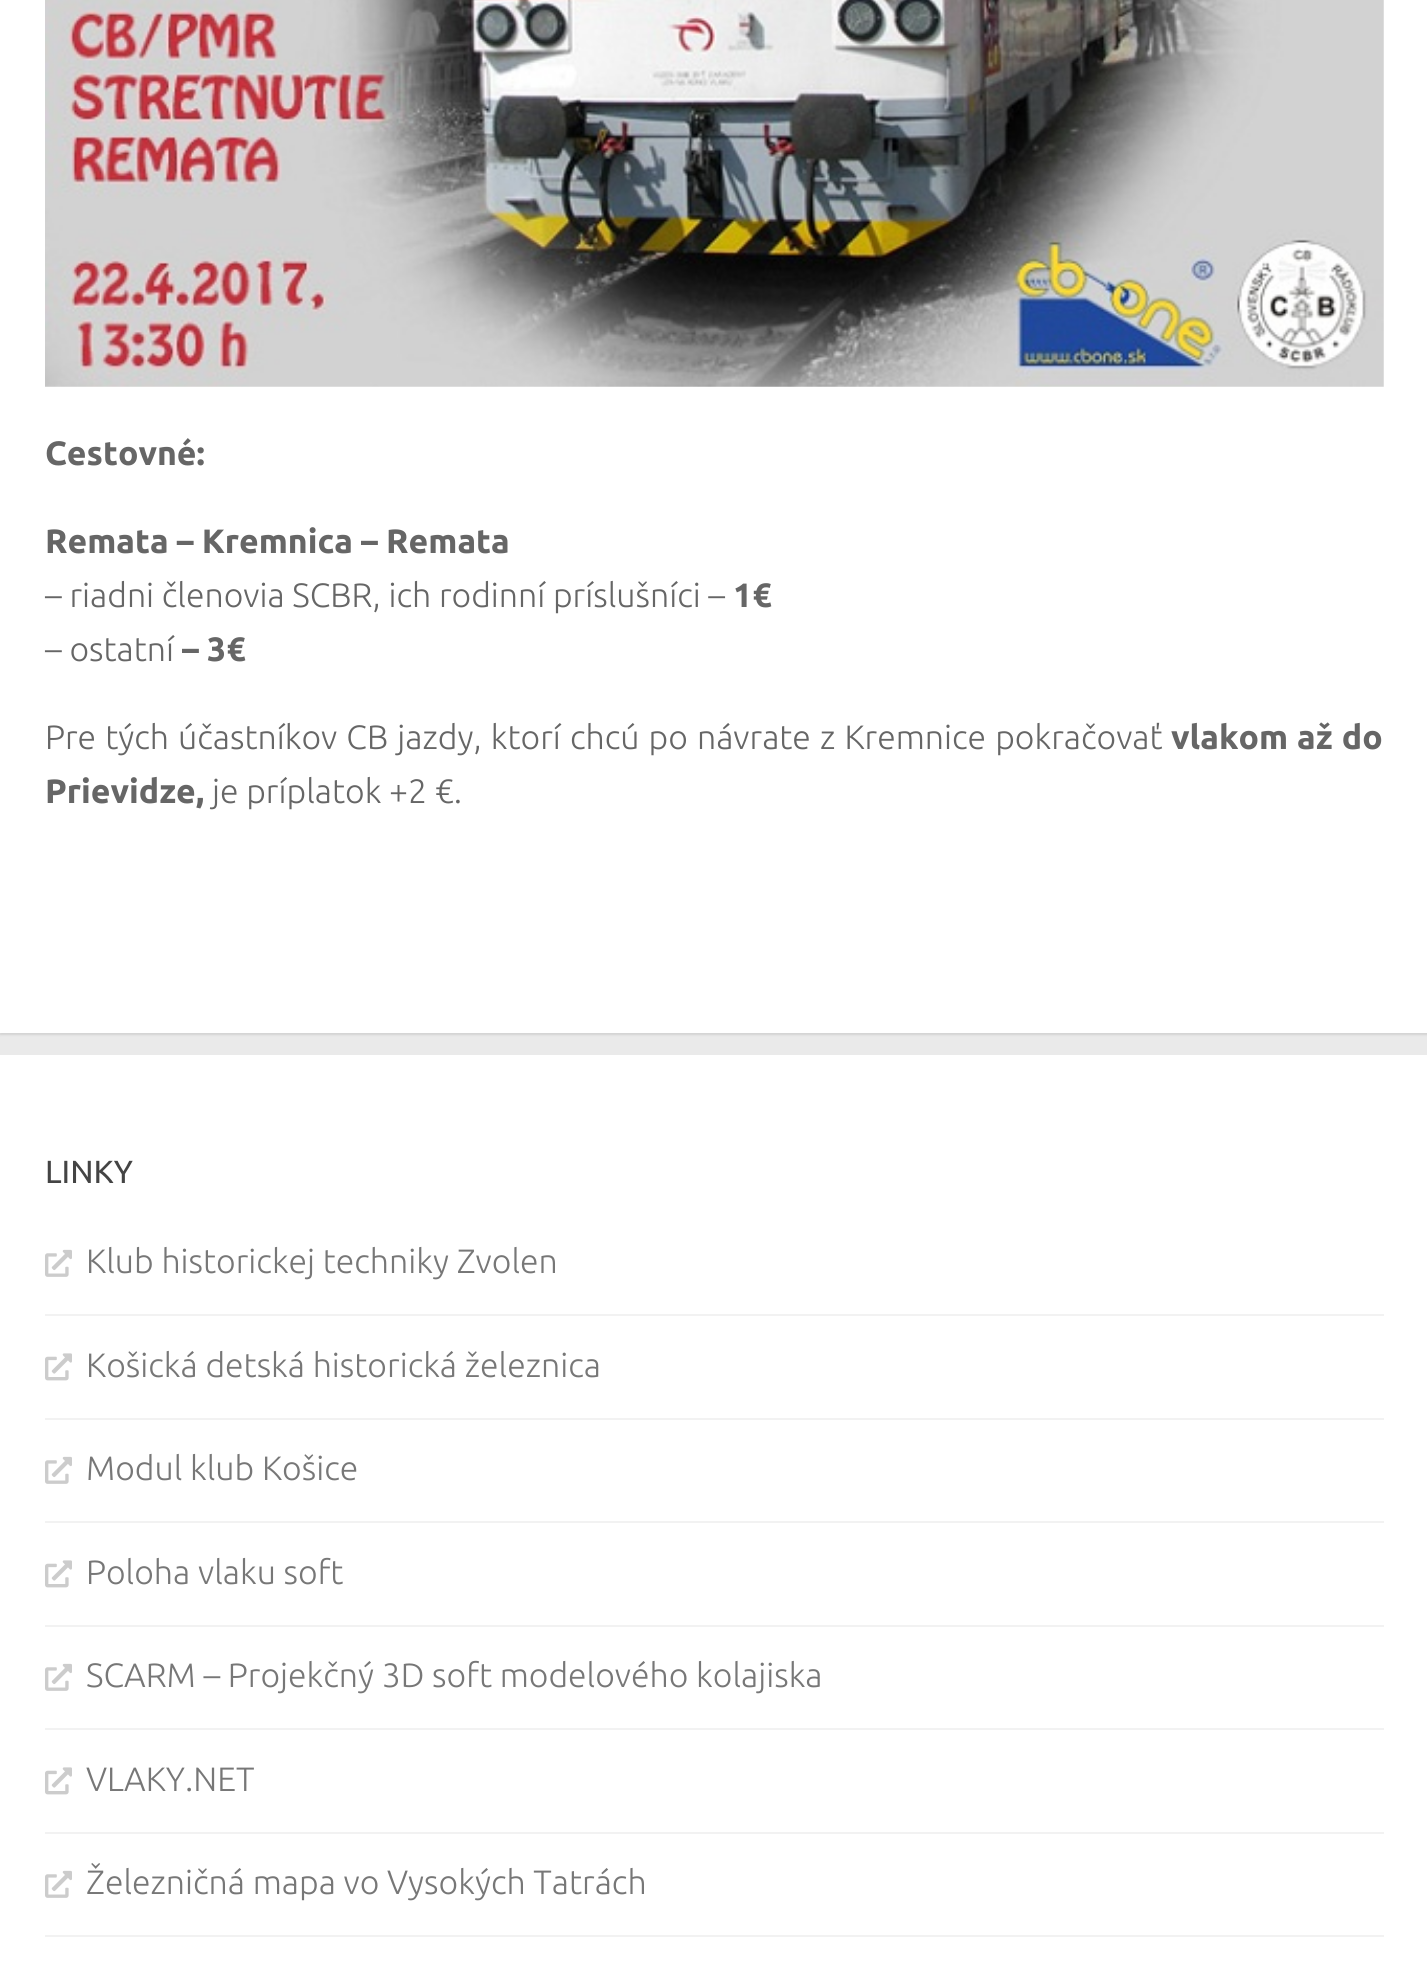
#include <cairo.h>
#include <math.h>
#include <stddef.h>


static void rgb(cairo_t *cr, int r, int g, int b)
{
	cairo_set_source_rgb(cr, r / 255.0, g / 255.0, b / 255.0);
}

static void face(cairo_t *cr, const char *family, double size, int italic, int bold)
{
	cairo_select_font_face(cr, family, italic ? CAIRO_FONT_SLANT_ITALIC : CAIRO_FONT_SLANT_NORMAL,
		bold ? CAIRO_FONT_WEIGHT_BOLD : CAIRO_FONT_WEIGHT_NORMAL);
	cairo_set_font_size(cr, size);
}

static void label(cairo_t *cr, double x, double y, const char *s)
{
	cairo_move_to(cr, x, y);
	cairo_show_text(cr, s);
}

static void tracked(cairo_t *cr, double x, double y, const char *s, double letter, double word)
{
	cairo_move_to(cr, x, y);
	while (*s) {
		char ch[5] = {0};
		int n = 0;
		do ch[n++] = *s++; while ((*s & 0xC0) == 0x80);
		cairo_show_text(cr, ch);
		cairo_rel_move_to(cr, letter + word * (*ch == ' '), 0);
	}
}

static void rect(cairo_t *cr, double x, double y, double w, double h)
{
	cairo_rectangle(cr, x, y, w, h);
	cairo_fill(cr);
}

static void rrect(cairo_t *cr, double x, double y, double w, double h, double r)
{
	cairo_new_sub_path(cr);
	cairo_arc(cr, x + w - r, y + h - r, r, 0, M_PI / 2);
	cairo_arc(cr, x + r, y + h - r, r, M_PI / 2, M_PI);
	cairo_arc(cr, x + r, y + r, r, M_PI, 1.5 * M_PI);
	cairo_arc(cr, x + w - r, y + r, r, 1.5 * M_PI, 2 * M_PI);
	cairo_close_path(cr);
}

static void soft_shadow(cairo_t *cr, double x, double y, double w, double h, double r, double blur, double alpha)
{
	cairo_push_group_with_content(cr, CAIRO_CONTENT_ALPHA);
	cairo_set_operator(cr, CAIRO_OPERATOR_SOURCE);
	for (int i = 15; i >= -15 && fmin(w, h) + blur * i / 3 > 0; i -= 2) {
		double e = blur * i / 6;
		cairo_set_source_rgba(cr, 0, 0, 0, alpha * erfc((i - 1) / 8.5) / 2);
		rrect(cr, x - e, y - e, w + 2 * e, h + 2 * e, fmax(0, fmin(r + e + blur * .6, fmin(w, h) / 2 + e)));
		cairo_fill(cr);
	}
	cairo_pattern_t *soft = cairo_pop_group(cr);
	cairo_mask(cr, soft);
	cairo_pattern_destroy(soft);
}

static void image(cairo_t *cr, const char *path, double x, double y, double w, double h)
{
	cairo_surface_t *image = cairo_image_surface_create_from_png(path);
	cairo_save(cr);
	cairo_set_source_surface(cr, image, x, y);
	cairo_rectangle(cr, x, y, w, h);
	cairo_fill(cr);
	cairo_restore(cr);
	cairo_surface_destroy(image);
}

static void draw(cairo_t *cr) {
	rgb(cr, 234, 234, 234);
	cairo_paint(cr);
	rgb(cr, 0, 0, 0);
	soft_shadow(cr, 0, -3, 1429, 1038, 0, 1, 0.1);
	rgb(cr, 255, 255, 255);
	rect(cr, 0, 0, 1427, 1033);
	image(cr, "image0.png", 45, 0, 1339, 387);
	face(cr, "Ubuntu", 33.75, 0, 1);
	rgb(cr, 102, 102, 102);
	label(cr, 45, 465, "Cestovné:");
	label(cr, 45, 553, "Remata – Kremnica – Remata");
	face(cr, "Ubuntu Light", 33.75, 0, 0);
	label(cr, 45, 607, "– riadni členovia SCBR, ich rodinní príslušníci –");
	face(cr, "Ubuntu", 33.75, 0, 1);
	label(cr, 733, 607, "1€");
	face(cr, "Ubuntu Light", 33.75, 0, 0);
	label(cr, 45, 661, "– ostatní");
	face(cr, "Ubuntu", 33.75, 0, 1);
	label(cr, 182, 661, "– 3€");
	face(cr, "Ubuntu Light", 33.75, 0, 0);
	tracked(cr, 45, 749, "Pre tých účastníkov CB jazdy, ktorí chcú po návrate z Kremnice pokračovať", 0, 1.4);
	face(cr, "Ubuntu", 33.75, 0, 1);
	tracked(cr, 1171, 749, "vlakom až do", 0, 1);
	label(cr, 45, 803, "Prievidze,");
	face(cr, "Ubuntu Light", 33.75, 0, 0);
	label(cr, 212, 803, "je príplatok +2 €.");
	rgb(cr, 255, 255, 255);
	rect(cr, 0, 1055, 1427, 922);
	face(cr, "Ubuntu", 32, 0, 0);
	rgb(cr, 68, 68, 68);
	label(cr, 45, 1183, "LINKY");
	rgb(cr, 242, 242, 242);
	rect(cr, 45, 1314, 1339, 2);
	image(cr, "image1.png", 45, 1249, 27, 28);
	face(cr, "Ubuntu Light", 33.75, 0, 0);
	rgb(cr, 119, 119, 119);
	label(cr, 86, 1273, "Klub historickej techniky Zvolen");
	rgb(cr, 242, 242, 242);
	rect(cr, 45, 1418, 1339, 2);
	image(cr, "image2.png", 45, 1353, 27, 28);
	rgb(cr, 119, 119, 119);
	label(cr, 86, 1377, "Košická detská historická železnica");
	rgb(cr, 242, 242, 242);
	rect(cr, 45, 1521, 1339, 2);
	image(cr, "image1.png", 45, 1456, 27, 28);
	rgb(cr, 119, 119, 119);
	label(cr, 86, 1480, "Modul klub Košice");
	rgb(cr, 242, 242, 242);
	rect(cr, 45, 1625, 1339, 2);
	image(cr, "image2.png", 45, 1560, 27, 28);
	rgb(cr, 119, 119, 119);
	label(cr, 86, 1584, "Poloha vlaku soft");
	rgb(cr, 242, 242, 242);
	rect(cr, 45, 1728, 1339, 2);
	image(cr, "image1.png", 45, 1663, 27, 28);
	rgb(cr, 119, 119, 119);
	label(cr, 86, 1687, "SCARM – Projekčný 3D soft modelového kolajiska");
	rgb(cr, 242, 242, 242);
	rect(cr, 45, 1832, 1339, 2);
	image(cr, "image2.png", 45, 1767, 27, 28);
	rgb(cr, 119, 119, 119);
	label(cr, 86, 1791, "VLAKY.NET");
	rgb(cr, 242, 242, 242);
	rect(cr, 45, 1935, 1339, 2);
	image(cr, "image1.png", 45, 1870, 27, 28);
	rgb(cr, 119, 119, 119);
	label(cr, 86, 1894, "Železničná mapa vo Vysokých Tatrách");
}

int main(void) {
	cairo_surface_t *surface = cairo_image_surface_create(CAIRO_FORMAT_RGB24, 1427, 1977);
	cairo_t *cr = cairo_create(surface);
	cairo_font_options_t *options = cairo_font_options_create();
	cairo_font_options_set_hint_metrics(options, CAIRO_HINT_METRICS_OFF);
	cairo_font_options_set_hint_style(options, CAIRO_HINT_STYLE_NONE);
	cairo_set_font_options(cr, options);
	cairo_set_miter_limit(cr, 4);
	draw(cr);
	cairo_surface_write_to_png(surface, "render.png");
	cairo_font_options_destroy(options);
	cairo_destroy(cr);
	cairo_surface_destroy(surface);
	return 0;
}
